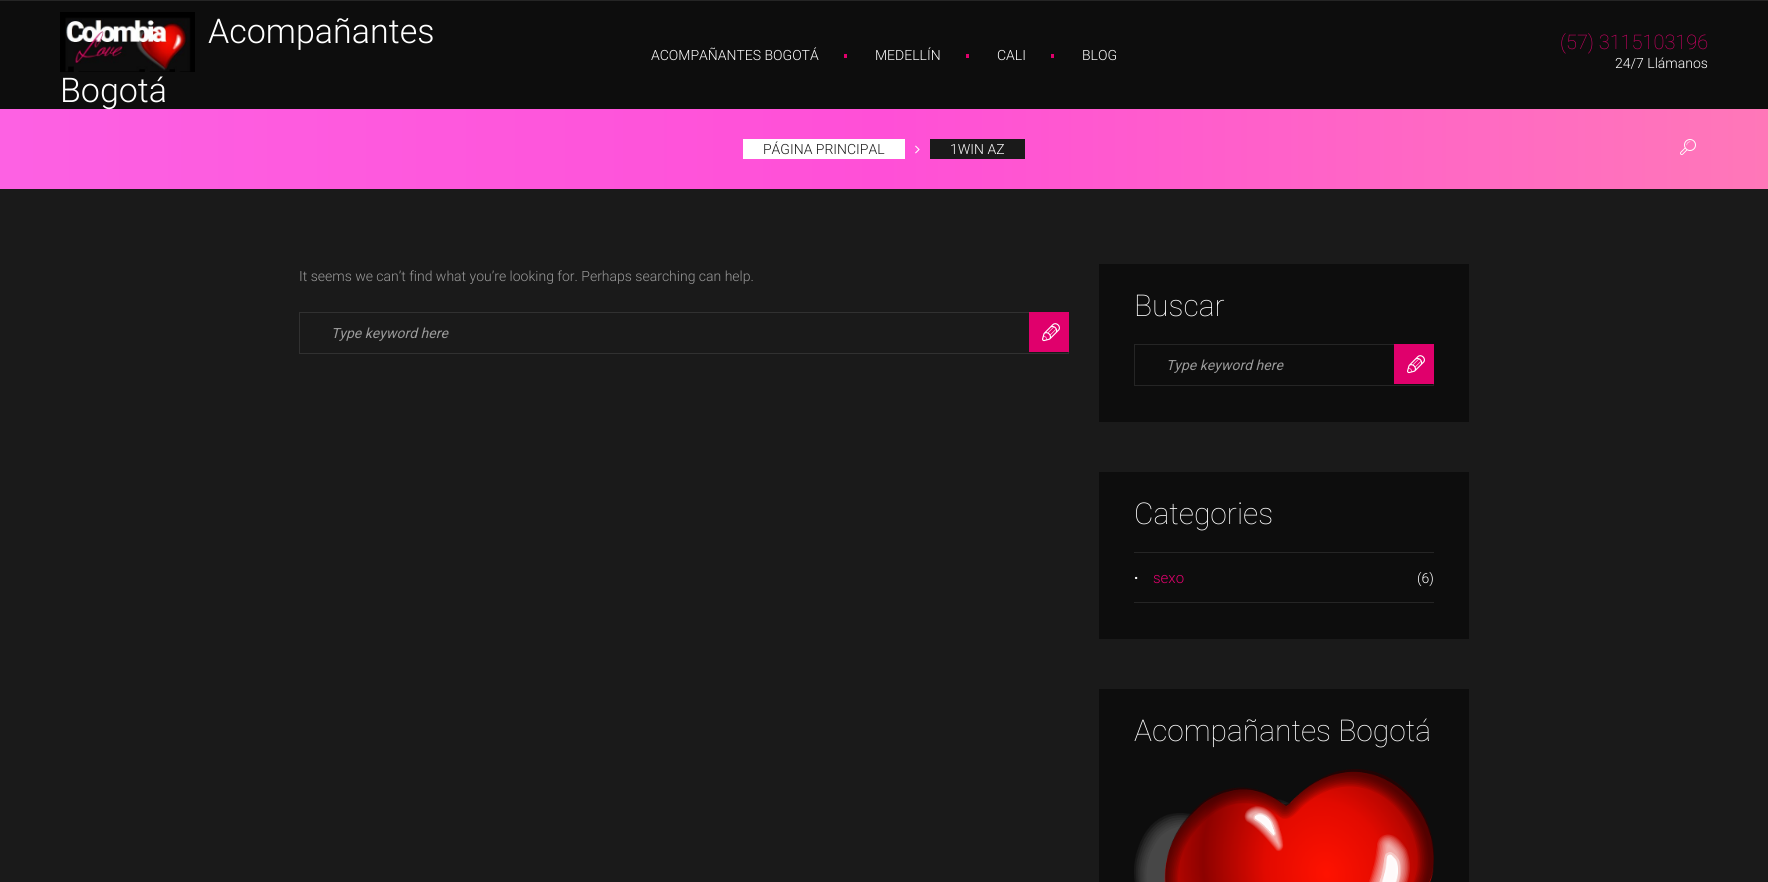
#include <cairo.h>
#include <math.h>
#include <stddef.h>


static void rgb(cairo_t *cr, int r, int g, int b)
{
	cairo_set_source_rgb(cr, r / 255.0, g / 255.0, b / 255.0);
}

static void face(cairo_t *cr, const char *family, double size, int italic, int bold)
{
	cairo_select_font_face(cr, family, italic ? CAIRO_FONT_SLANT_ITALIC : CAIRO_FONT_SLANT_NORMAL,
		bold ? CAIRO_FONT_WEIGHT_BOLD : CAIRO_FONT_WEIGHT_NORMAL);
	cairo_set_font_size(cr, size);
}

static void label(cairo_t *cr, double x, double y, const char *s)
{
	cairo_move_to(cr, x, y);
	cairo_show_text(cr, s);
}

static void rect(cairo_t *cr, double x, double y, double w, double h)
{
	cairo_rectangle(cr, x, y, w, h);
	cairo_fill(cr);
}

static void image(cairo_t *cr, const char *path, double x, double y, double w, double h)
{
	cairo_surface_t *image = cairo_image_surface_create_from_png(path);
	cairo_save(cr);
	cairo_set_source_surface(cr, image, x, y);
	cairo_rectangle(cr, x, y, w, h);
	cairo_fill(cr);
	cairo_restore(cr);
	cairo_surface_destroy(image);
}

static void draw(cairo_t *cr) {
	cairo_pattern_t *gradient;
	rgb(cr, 26, 26, 26);
	cairo_paint(cr);
	rgb(cr, 13, 13, 13);
	rect(cr, 0, 1, 1768, 108);
	rgb(cr, 37, 37, 37);
	rect(cr, 0, 0, 1768, 1);
	image(cr, "image0.png", 60, 12, 135, 60);
	face(cr, "Roboto Light", 34, 0, 0);
	rgb(cr, 255, 255, 255);
	label(cr, 208, 43, "Acompañantes");
	gradient = cairo_pattern_create_linear(0, 149, 1768, 149);
	cairo_pattern_add_color_stop_rgba(gradient, 0, 0.992, 0.38, 0.89, 1);
	cairo_pattern_add_color_stop_rgba(gradient, 0.5, 1, 0.31, 0.843, 1);
	cairo_pattern_add_color_stop_rgba(gradient, 1, 1, 0.467, 0.722, 1);
	cairo_set_source(cr, gradient);
	cairo_pattern_destroy(gradient);
	rect(cr, 0, 109, 1768, 80);
	rgb(cr, 255, 255, 255);
	label(cr, 60, 102, "Bogotá");
	face(cr, "Roboto Light", 14, 0, 0);
	label(cr, 651, 60, "ACOMPAÑANTES BOGOTÁ");
	rgb(cr, 224, 0, 108);
	rect(cr, 844, 54, 3, 4);
	rgb(cr, 255, 255, 255);
	label(cr, 875, 60, "MEDELLÍN");
	rgb(cr, 224, 0, 108);
	rect(cr, 966, 54, 3, 4);
	rgb(cr, 255, 255, 255);
	label(cr, 997, 60, "CALI");
	rgb(cr, 224, 0, 108);
	rect(cr, 1051, 54, 3, 4);
	rgb(cr, 255, 255, 255);
	label(cr, 1082, 60, "BLOG");
	face(cr, "Roboto Thin", 20, 0, 0);
	rgb(cr, 224, 0, 108);
	label(cr, 1560, 49, "(57) 3115103196");
	face(cr, "Roboto Light", 14, 0, 0);
	rgb(cr, 255, 255, 255);
	label(cr, 1615, 68, "24/7 Llámanos");
	rect(cr, 743, 139, 162, 20);
	rgb(cr, 26, 26, 26);
	label(cr, 763, 154, "PÁGINA PRINCIPAL");
	image(cr, "image1.png", 915, 145, 5, 9);
	rect(cr, 930, 139, 95, 20);
	rgb(cr, 255, 255, 255);
	label(cr, 950, 154, "1WIN AZ");
	image(cr, "image2.png", 1680, 139, 16, 16);
	rgb(cr, 153, 153, 153);
	label(cr, 299, 281, "It seems we can’t find what you’re looking for. Perhaps searching can help.");
	cairo_rectangle(cr, 299.5, 312.5, 769, 41);
	rgb(cr, 49, 49, 49);
	cairo_set_line_width(cr, 1);
	cairo_stroke(cr);
	face(cr, "Roboto", 14, 1, 0);
	rgb(cr, 153, 153, 153);
	label(cr, 331, 338, "Type keyword here");
	rgb(cr, 224, 0, 108);
	rect(cr, 1029, 312, 40, 40);
	image(cr, "image3.png", 1042, 323, 18, 19);
	rgb(cr, 13, 13, 13);
	rect(cr, 1099, 264, 370, 158);
	face(cr, "Roboto Thin", 30, 0, 0);
	rgb(cr, 255, 255, 255);
	label(cr, 1134, 316, "Buscar");
	cairo_rectangle(cr, 1134.5, 344.5, 299, 41);
	rgb(cr, 37, 37, 37);
	cairo_stroke(cr);
	face(cr, "Roboto", 14, 1, 0);
	rgb(cr, 153, 153, 153);
	label(cr, 1166, 370, "Type keyword here");
	rgb(cr, 224, 0, 108);
	rect(cr, 1394, 344, 40, 40);
	image(cr, "image3.png", 1407, 355, 18, 19);
	rgb(cr, 13, 13, 13);
	rect(cr, 1099, 472, 370, 167);
	face(cr, "Roboto Thin", 30, 0, 0);
	rgb(cr, 255, 255, 255);
	label(cr, 1134, 524, "Categories");
	rgb(cr, 37, 37, 37);
	rect(cr, 1134, 552, 300, 1);
	rect(cr, 1134, 602, 300, 1);
	face(cr, "Roboto", 15, 0, 1);
	rgb(cr, 255, 255, 255);
	label(cr, 1134, 579, ".");
	face(cr, "Roboto Light", 15, 0, 0);
	rgb(cr, 224, 0, 108);
	label(cr, 1153, 583, "sexo");
	face(cr, "Roboto Light", 14, 0, 0);
	rgb(cr, 255, 255, 255);
	label(cr, 1417, 583, "(6)");
	rgb(cr, 13, 13, 13);
	rect(cr, 1099, 689, 370, 193);
	face(cr, "Roboto Thin", 30, 0, 0);
	rgb(cr, 255, 255, 255);
	label(cr, 1134, 741, "Acompañantes Bogotá");
	image(cr, "image4.png", 1134, 769, 300, 113);
}

int main(void) {
	cairo_surface_t *surface = cairo_image_surface_create(CAIRO_FORMAT_RGB24, 1768, 882);
	cairo_t *cr = cairo_create(surface);
	cairo_font_options_t *options = cairo_font_options_create();
	cairo_font_options_set_hint_metrics(options, CAIRO_HINT_METRICS_OFF);
	cairo_font_options_set_hint_style(options, CAIRO_HINT_STYLE_NONE);
	cairo_set_font_options(cr, options);
	cairo_set_miter_limit(cr, 4);
	draw(cr);
	cairo_surface_write_to_png(surface, "render.png");
	cairo_font_options_destroy(options);
	cairo_destroy(cr);
	cairo_surface_destroy(surface);
	return 0;
}
